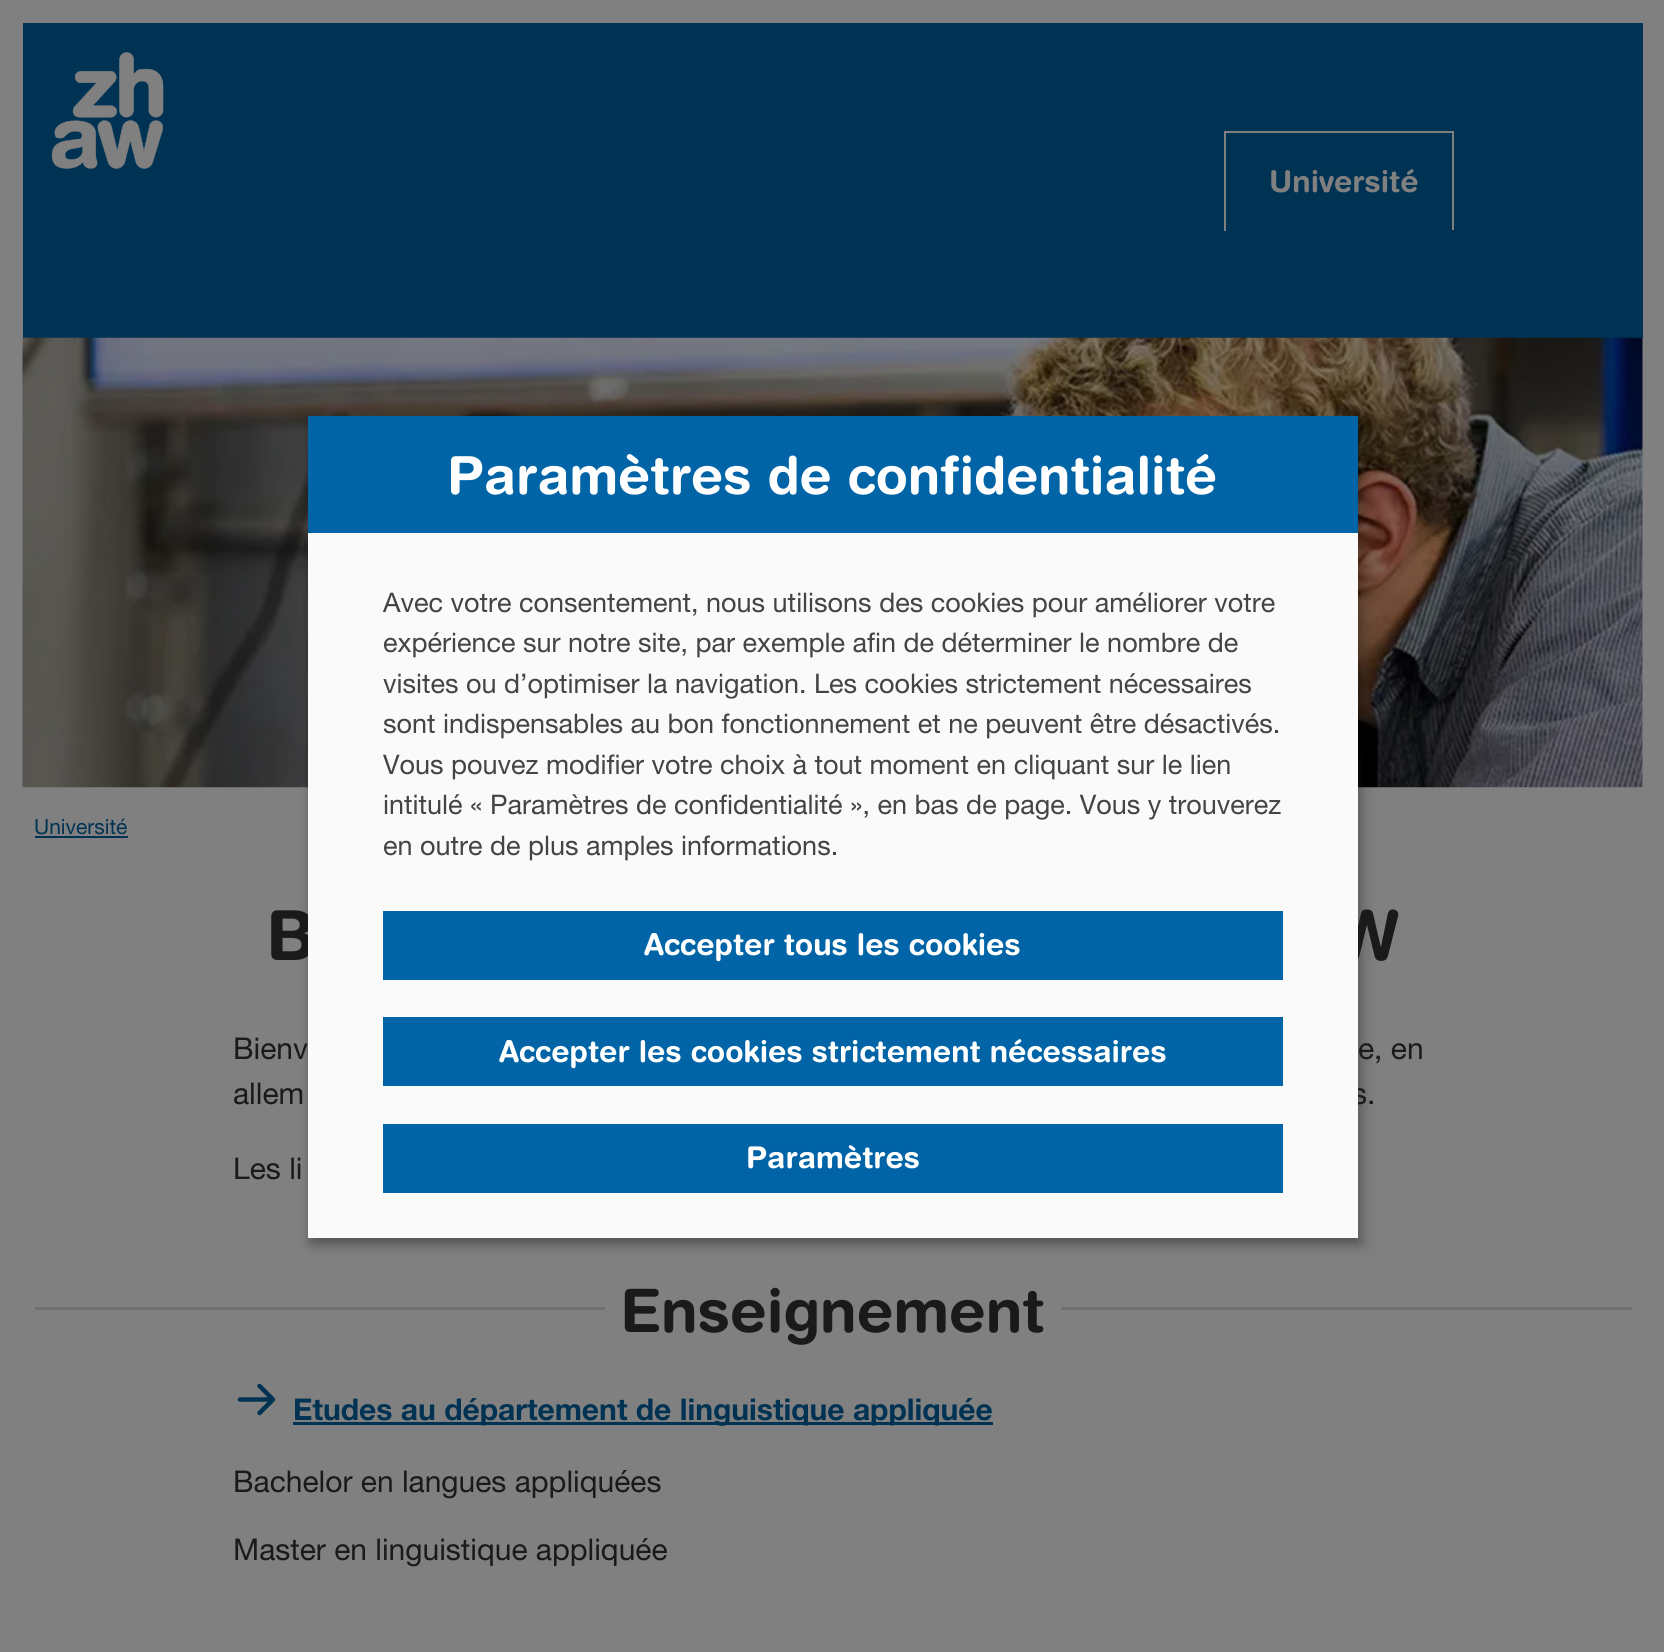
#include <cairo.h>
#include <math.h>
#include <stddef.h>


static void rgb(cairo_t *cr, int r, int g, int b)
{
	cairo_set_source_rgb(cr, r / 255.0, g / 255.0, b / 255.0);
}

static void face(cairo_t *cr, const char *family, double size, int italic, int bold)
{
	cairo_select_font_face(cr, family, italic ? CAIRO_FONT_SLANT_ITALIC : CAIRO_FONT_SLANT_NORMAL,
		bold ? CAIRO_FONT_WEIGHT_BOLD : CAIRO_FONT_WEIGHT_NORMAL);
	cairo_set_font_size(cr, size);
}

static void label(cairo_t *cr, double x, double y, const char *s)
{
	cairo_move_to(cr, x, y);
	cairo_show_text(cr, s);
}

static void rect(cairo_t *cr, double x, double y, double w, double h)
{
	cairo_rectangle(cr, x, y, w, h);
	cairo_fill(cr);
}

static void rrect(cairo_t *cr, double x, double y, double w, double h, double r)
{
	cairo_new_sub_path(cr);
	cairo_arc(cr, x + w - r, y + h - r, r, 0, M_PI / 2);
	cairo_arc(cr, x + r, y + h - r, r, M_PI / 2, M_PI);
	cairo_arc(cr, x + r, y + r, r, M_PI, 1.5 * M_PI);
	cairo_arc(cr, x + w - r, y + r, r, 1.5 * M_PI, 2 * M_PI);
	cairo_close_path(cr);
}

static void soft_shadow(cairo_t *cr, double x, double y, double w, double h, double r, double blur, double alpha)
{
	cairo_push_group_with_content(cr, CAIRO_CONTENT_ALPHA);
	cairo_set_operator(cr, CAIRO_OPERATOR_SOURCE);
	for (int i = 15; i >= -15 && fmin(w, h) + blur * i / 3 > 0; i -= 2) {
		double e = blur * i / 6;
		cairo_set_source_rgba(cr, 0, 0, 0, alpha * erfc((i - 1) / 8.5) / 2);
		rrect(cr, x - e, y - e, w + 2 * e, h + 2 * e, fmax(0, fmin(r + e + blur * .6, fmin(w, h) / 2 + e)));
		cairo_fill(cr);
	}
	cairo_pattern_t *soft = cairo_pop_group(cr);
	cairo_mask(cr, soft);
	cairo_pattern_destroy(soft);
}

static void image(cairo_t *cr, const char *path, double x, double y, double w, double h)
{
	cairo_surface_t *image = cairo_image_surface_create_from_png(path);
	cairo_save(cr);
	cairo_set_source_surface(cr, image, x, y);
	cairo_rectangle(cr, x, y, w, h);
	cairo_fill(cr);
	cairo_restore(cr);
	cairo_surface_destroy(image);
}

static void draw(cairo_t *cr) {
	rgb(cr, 128, 128, 128);
	cairo_paint(cr);
	rgb(cr, 0, 50, 83);
	rect(cr, 23, 23, 1620, 315);
	image(cr, "image0.png", 51, 52, 113, 117);
	rgb(cr, 128, 128, 128);
	rect(cr, 1224, 131, 230, 2);
	rect(cr, 1452, 131, 2, 100);
	rgb(cr, 0, 50, 83);
	rect(cr, 1452, 230, 2, 1);
	rgb(cr, 128, 128, 128);
	rect(cr, 1224, 131, 2, 100);
	face(cr, "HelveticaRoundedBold", 30, 0, 1);
	label(cr, 1269, 192, "Université");
	image(cr, "image1.png", 22, 337, 1621, 451);
	rgb(cr, 0, 0, 0);
	soft_shadow(cr, 315, 423, 1050, 822, 0, 7.5, 0.19);
	soft_shadow(cr, 308, 422, 1050, 822, 0, 4.5, 0.2);
	face(cr, "HelveticaRoundedBold", 69, 0, 1);
	rgb(cr, 26, 26, 26);
	label(cr, 266, 960, "B");
	label(cr, 1335, 960, "W");
	face(cr, "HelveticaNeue", 30, 0, 0);
	label(cr, 1352, 1104, "s.");
	rgb(cr, 250, 250, 250);
	rect(cr, 308, 533, 1050, 705);
	rgb(cr, 0, 100, 166);
	rect(cr, 308, 416, 1050, 117);
	face(cr, "HelveticaRoundedBold", 52.5, 0, 1);
	rgb(cr, 255, 255, 255);
	label(cr, 447, 494, "Paramètres de confidentialité");
	face(cr, "HelveticaNeue", 27, 0, 0);
	rgb(cr, 68, 68, 68);
	label(cr, 383, 612, "Avec votre consentement, nous utilisons des cookies pour améliorer votre");
	label(cr, 383, 652, "expérience sur notre site, par exemple afin de déterminer le nombre de");
	label(cr, 383, 693, "visites ou d’optimiser la navigation. Les cookies strictement nécessaires");
	label(cr, 383, 733, "sont indispensables au bon fonctionnement et ne peuvent être désactivés.");
	label(cr, 383, 774, "Vous pouvez modifier votre choix à tout moment en cliquant sur le lien");
	label(cr, 383, 814, "intitulé « Paramètres de confidentialité », en bas de page. Vous y trouverez");
	label(cr, 383, 855, "en outre de plus amples informations.");
	rgb(cr, 0, 100, 166);
	rect(cr, 383, 911, 900, 69);
	face(cr, "HelveticaRoundedBold", 30, 0, 1);
	rgb(cr, 255, 255, 255);
	label(cr, 644, 955, "Accepter tous les cookies");
	rgb(cr, 0, 100, 166);
	rect(cr, 383, 1017, 900, 69);
	rgb(cr, 255, 255, 255);
	label(cr, 499, 1062, "Accepter les cookies strictement nécessaires");
	rgb(cr, 0, 100, 166);
	rect(cr, 383, 1124, 900, 69);
	rgb(cr, 255, 255, 255);
	label(cr, 746, 1168, "Paramètres");
	face(cr, "HelveticaNeue", 21, 0, 0);
	rgb(cr, 0, 50, 83);
	label(cr, 34, 834, "Université");
	rect(cr, 35, 836, 93, 2);
	face(cr, "HelveticaNeue", 30, 0, 0);
	rgb(cr, 26, 26, 26);
	label(cr, 233, 1059, "Bienv");
	label(cr, 1358, 1059, "e, en");
	label(cr, 233, 1104, "allem");
	label(cr, 233, 1179, "Les li");
	rgb(cr, 112, 112, 112);
	rect(cr, 35, 1307, 570, 3);
	face(cr, "HelveticaRoundedBold", 60, 0, 1);
	rgb(cr, 26, 26, 26);
	label(cr, 620, 1332, "Enseignement");
	rgb(cr, 112, 112, 112);
	rect(cr, 1061, 1307, 571, 3);
	cairo_new_path(cr);
	cairo_move_to(cr, 240, 1399.5);
	cairo_line_to(cr, 273, 1399.5);
	cairo_move_to(cr, 259.5, 1386);
	cairo_line_to(cr, 273, 1399.5);
	cairo_line_to(cr, 259.5, 1413);
	rgb(cr, 0, 50, 83);
	cairo_set_line_width(cr, 4.5);
	cairo_set_line_cap(cr, CAIRO_LINE_CAP_ROUND);
	cairo_set_line_join(cr, CAIRO_LINE_JOIN_ROUND);
	cairo_stroke(cr);
	rect(cr, 293, 1422, 700, 3);
	face(cr, "HelveticaNeue", 30, 0, 1);
	label(cr, 293, 1420, "Etudes au département de linguistique appliquée");
	face(cr, "HelveticaNeue", 30, 0, 0);
	rgb(cr, 26, 26, 26);
	label(cr, 233, 1492, "Bachelor en langues appliquées");
	label(cr, 233, 1560, "Master en linguistique appliquée");
}

int main(void) {
	cairo_surface_t *surface = cairo_image_surface_create(CAIRO_FORMAT_RGB24, 1664, 1652);
	cairo_t *cr = cairo_create(surface);
	cairo_font_options_t *options = cairo_font_options_create();
	cairo_font_options_set_hint_metrics(options, CAIRO_HINT_METRICS_OFF);
	cairo_font_options_set_hint_style(options, CAIRO_HINT_STYLE_NONE);
	cairo_set_font_options(cr, options);
	cairo_set_miter_limit(cr, 4);
	draw(cr);
	cairo_surface_write_to_png(surface, "render.png");
	cairo_font_options_destroy(options);
	cairo_destroy(cr);
	cairo_surface_destroy(surface);
	return 0;
}
